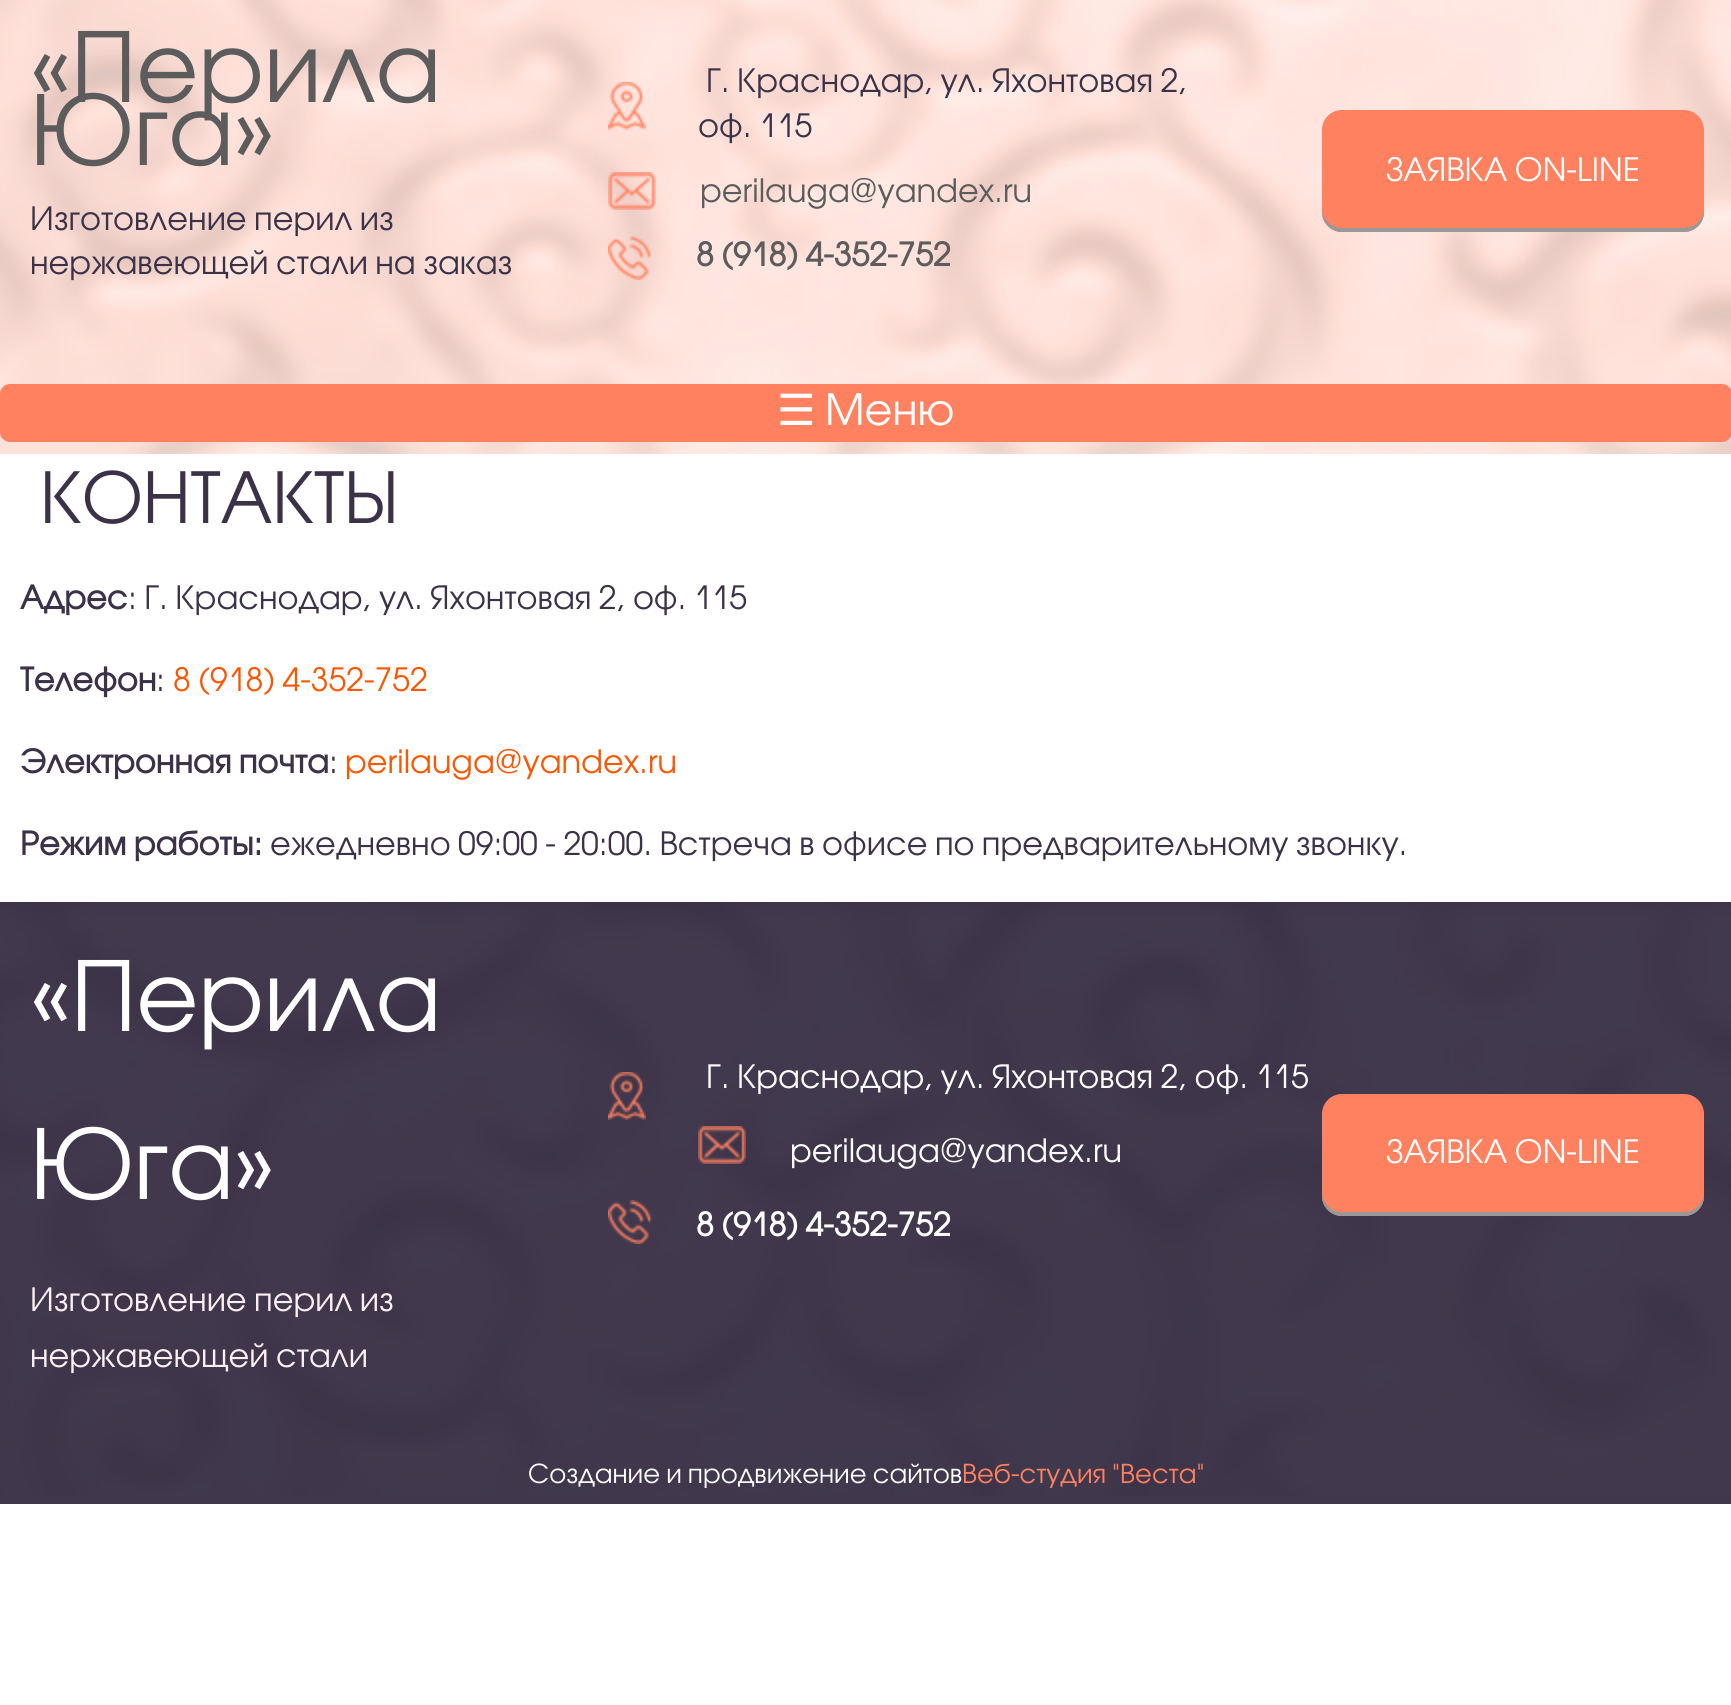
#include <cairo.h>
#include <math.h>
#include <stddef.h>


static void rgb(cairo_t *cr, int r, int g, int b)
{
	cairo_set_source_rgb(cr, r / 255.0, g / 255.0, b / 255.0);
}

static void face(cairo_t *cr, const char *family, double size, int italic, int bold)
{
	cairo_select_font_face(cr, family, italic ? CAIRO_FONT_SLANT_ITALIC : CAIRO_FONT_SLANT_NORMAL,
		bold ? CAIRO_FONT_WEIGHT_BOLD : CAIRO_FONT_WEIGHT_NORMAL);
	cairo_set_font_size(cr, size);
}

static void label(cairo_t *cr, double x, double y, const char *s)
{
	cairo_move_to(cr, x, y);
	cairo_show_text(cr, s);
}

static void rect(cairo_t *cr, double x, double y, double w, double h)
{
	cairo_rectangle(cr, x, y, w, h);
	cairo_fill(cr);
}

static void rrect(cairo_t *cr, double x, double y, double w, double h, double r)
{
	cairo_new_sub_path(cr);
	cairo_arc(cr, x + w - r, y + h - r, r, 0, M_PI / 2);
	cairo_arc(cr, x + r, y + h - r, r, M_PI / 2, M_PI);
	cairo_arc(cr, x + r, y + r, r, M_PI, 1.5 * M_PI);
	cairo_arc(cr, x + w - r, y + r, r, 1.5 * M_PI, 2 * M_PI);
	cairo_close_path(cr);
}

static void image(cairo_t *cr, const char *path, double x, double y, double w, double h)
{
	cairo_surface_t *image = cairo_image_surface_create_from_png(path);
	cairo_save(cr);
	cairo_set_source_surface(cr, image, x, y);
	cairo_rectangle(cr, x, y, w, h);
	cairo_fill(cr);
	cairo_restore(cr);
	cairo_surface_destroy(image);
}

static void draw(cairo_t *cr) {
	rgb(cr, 255, 255, 255);
	cairo_paint(cr);
	image(cr, "image0.png", 0, 0, 1731, 454);
	face(cr, "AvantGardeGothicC", 96, 0, 0);
	rgb(cr, 92, 92, 92);
	label(cr, 30, 102, "«Перила");
	label(cr, 30, 165, "Юга»");
	face(cr, "AvantGardeGothicC", 32, 0, 0);
	rgb(cr, 59, 50, 71);
	label(cr, 30, 230, "Изготовление перил из");
	label(cr, 30, 274, "нержавеющей стали на заказ");
	image(cr, "image1.png", 608, 82, 38, 48);
	label(cr, 706, 92, "Г. Краснодар, ул. Яхонтовая 2,");
	label(cr, 698, 137, "оф. 115");
	image(cr, "image2.png", 608, 172, 48, 38);
	rgb(cr, 92, 92, 92);
	label(cr, 700, 202, "perilauga@yandex.ru");
	image(cr, "image3.png", 608, 236, 44, 44);
	face(cr, "AvantGardeGothicC", 32, 0, 1);
	label(cr, 696, 266, "8 (918) 4-352-752");
	rgb(cr, 255, 129, 96);
	rrect(cr, 1322, 110, 382, 122, 20);
	cairo_fill(cr);
	rgb(cr, 152, 152, 152);
	cairo_new_path(cr);
	cairo_move_to(cr, 1322, 208);
	cairo_line_to(cr, 1322, 212);
	cairo_curve_to(cr, 1322, 223, 1331, 232, 1342, 232);
	cairo_line_to(cr, 1684, 232);
	cairo_curve_to(cr, 1695, 232, 1704, 223, 1704, 212);
	cairo_line_to(cr, 1704, 208);
	cairo_curve_to(cr, 1704, 219, 1695, 228, 1684, 228);
	cairo_line_to(cr, 1342, 228);
	cairo_curve_to(cr, 1331, 228, 1322, 219, 1322, 208);
	cairo_close_path(cr);
	cairo_fill(cr);
	face(cr, "AvantGardeGothicC", 32, 0, 0);
	rgb(cr, 255, 255, 255);
	label(cr, 1386, 181, "ЗАЯВКА ON-LINE");
	rgb(cr, 255, 129, 96);
	rrect(cr, 0, 384, 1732, 58, 10);
	cairo_fill(cr);
	face(cr, "DejaVu Sans", 43, 0, 0);
	rgb(cr, 255, 255, 255);
	label(cr, 777, 425, "☰");
	face(cr, "AvantGardeGothicC", 43, 0, 0);
	label(cr, 825, 425, "Меню");
	face(cr, "AvantGardeGothicC", 70, 0, 0);
	rgb(cr, 59, 50, 71);
	label(cr, 40, 523, "КОНТАКТЫ");
	face(cr, "AvantGardeGothicC", 32, 0, 1);
	label(cr, 20, 609, "Адрес");
	face(cr, "AvantGardeGothicC", 32, 0, 0);
	label(cr, 128, 609, ": Г. Краснодар, ул. Яхонтовая 2, оф. 115");
	face(cr, "AvantGardeGothicC", 32, 0, 1);
	label(cr, 20, 691, "Телефон");
	face(cr, "AvantGardeGothicC", 32, 0, 0);
	label(cr, 156, 691, ":");
	rgb(cr, 250, 87, 5);
	label(cr, 173, 691, "8 (918) 4-352-752");
	face(cr, "AvantGardeGothicC", 32, 0, 1);
	rgb(cr, 59, 50, 71);
	label(cr, 20, 773, "Электронная почта");
	face(cr, "AvantGardeGothicC", 32, 0, 0);
	label(cr, 329, 773, ":");
	rgb(cr, 250, 87, 5);
	label(cr, 345, 773, "perilauga@yandex.ru");
	face(cr, "AvantGardeGothicC", 32, 0, 1);
	rgb(cr, 59, 50, 71);
	label(cr, 20, 855, "Режим работы:");
	face(cr, "AvantGardeGothicC", 32, 0, 0);
	label(cr, 270, 855, "ежедневно 09:00 - 20:00. Встреча в офисе по предварительному звонку.");
	rgb(cr, 64, 55, 76);
	rect(cr, 0, 1496, 1731, 8);
	image(cr, "image4.png", 0, 902, 1731, 594);
	face(cr, "AvantGardeGothicC", 96, 0, 0);
	rgb(cr, 255, 255, 255);
	label(cr, 30, 1031, "«Перила");
	label(cr, 30, 1199, "Юга»");
	face(cr, "AvantGardeGothicC", 32, 0, 0);
	rgb(cr, 255, 240, 245);
	label(cr, 30, 1311, "Изготовление перил из");
	label(cr, 30, 1367, "нержавеющей стали");
	image(cr, "image5.png", 608, 1072, 38, 48);
	rgb(cr, 255, 255, 255);
	label(cr, 706, 1088, "Г. Краснодар, ул. Яхонтовая 2, оф. 115");
	image(cr, "image6.png", 698, 1126, 48, 38);
	label(cr, 790, 1162, "perilauga@yandex.ru");
	image(cr, "image7.png", 608, 1200, 44, 44);
	face(cr, "AvantGardeGothicC", 32, 0, 1);
	label(cr, 696, 1236, "8 (918) 4-352-752");
	rgb(cr, 255, 129, 96);
	rrect(cr, 1322, 1094, 382, 122, 20);
	cairo_fill(cr);
	rgb(cr, 152, 152, 152);
	cairo_new_path(cr);
	cairo_move_to(cr, 1322, 1192);
	cairo_line_to(cr, 1322, 1196);
	cairo_curve_to(cr, 1322, 1207, 1331, 1216, 1342, 1216);
	cairo_line_to(cr, 1684, 1216);
	cairo_curve_to(cr, 1695, 1216, 1704, 1207, 1704, 1196);
	cairo_line_to(cr, 1704, 1192);
	cairo_curve_to(cr, 1704, 1203, 1695, 1212, 1684, 1212);
	cairo_line_to(cr, 1342, 1212);
	cairo_curve_to(cr, 1331, 1212, 1322, 1203, 1322, 1192);
	cairo_close_path(cr);
	cairo_fill(cr);
	face(cr, "AvantGardeGothicC", 32, 0, 0);
	rgb(cr, 255, 255, 255);
	label(cr, 1386, 1163, "ЗАЯВКА ON-LINE");
	face(cr, "AvantGardeGothicC", 26, 0, 0);
	label(cr, 528, 1483, "Создание и продвижение сайтов");
	rgb(cr, 255, 129, 96);
	label(cr, 962, 1483, "Веб-студия \"Веста\"");
}

int main(void) {
	cairo_surface_t *surface = cairo_image_surface_create(CAIRO_FORMAT_RGB24, 1731, 1705);
	cairo_t *cr = cairo_create(surface);
	cairo_font_options_t *options = cairo_font_options_create();
	cairo_font_options_set_hint_metrics(options, CAIRO_HINT_METRICS_OFF);
	cairo_font_options_set_hint_style(options, CAIRO_HINT_STYLE_NONE);
	cairo_set_font_options(cr, options);
	cairo_set_miter_limit(cr, 4);
	draw(cr);
	cairo_surface_write_to_png(surface, "render.png");
	cairo_font_options_destroy(options);
	cairo_destroy(cr);
	cairo_surface_destroy(surface);
	return 0;
}
